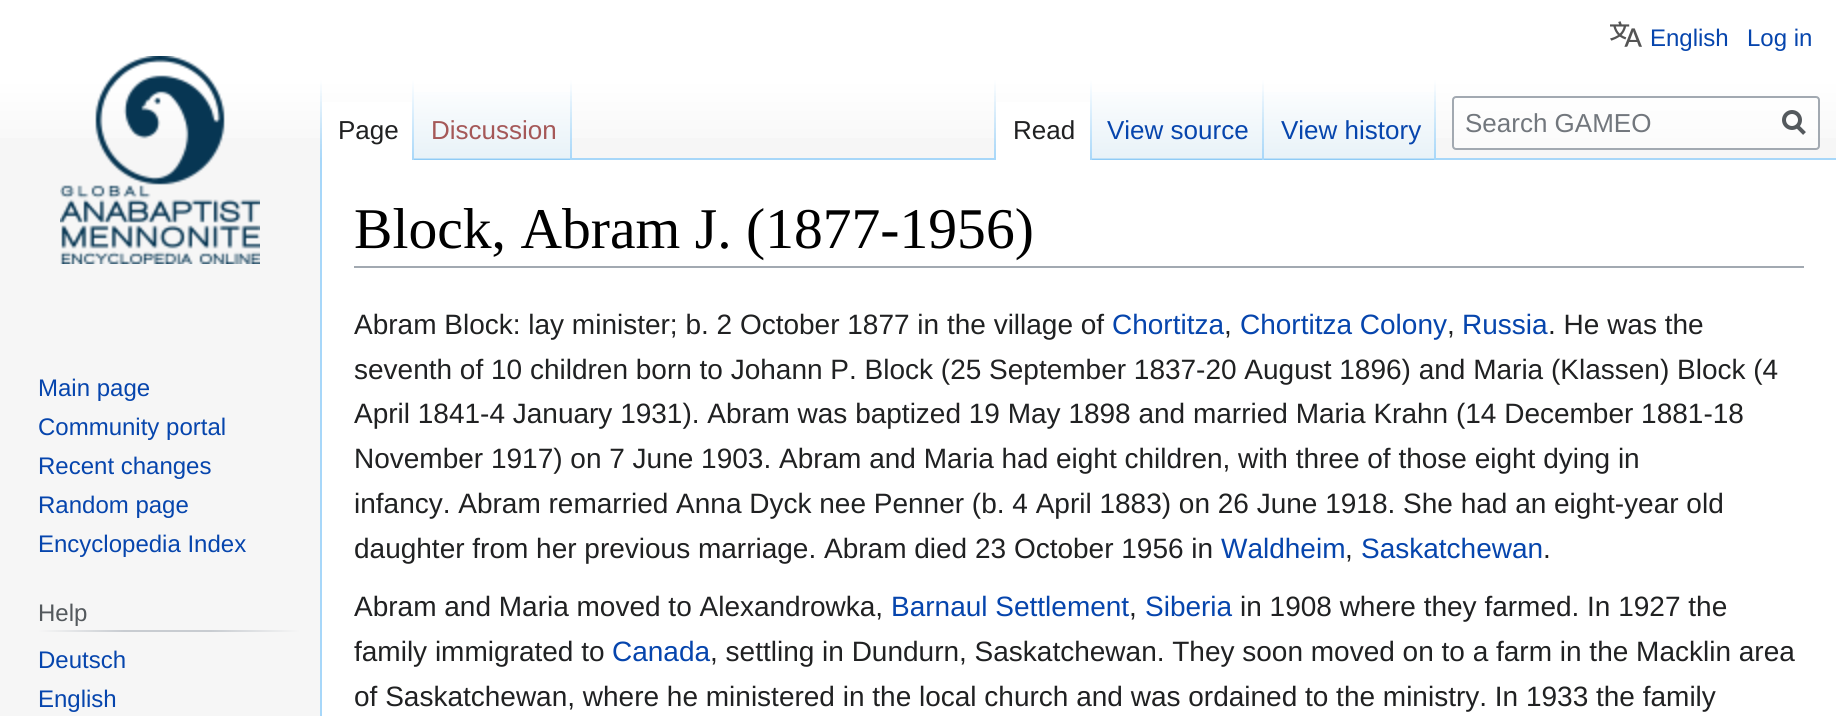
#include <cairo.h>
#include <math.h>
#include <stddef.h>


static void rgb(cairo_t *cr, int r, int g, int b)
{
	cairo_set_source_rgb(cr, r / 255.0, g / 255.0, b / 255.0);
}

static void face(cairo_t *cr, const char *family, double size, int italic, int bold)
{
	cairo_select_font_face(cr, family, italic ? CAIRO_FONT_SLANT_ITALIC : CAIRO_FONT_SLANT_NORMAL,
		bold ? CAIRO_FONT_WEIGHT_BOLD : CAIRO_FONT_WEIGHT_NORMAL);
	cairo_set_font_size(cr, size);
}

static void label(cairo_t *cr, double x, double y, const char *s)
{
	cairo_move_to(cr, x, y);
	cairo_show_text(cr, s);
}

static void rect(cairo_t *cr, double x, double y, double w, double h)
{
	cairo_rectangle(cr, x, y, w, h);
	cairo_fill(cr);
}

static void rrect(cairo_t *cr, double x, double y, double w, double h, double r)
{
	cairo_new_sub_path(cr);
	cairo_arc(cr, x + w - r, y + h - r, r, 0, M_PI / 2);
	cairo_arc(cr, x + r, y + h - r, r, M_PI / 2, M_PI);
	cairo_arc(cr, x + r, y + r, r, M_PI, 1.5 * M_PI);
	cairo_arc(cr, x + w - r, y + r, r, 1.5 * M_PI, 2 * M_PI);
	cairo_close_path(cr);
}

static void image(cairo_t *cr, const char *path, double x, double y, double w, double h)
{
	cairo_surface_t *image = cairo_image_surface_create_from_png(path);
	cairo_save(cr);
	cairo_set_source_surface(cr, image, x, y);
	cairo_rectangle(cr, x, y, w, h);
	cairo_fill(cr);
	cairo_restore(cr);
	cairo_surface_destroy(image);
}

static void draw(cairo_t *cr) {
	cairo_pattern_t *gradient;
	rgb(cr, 246, 246, 246);
	cairo_paint(cr);
	gradient = cairo_pattern_create_linear(918, 0, 918, 160);
	cairo_pattern_add_color_stop_rgba(gradient, 0.5, 1, 1, 1, 1);
	cairo_pattern_add_color_stop_rgba(gradient, 1, 0.965, 0.965, 0.965, 1);
	cairo_set_source(cr, gradient);
	cairo_pattern_destroy(gradient);
	rect(cr, 0, 0, 1836, 138);
	image(cr, "image0.png", 1610, 21, 32, 26);
	face(cr, "Liberation Sans", 24, 0, 0);
	rgb(cr, 6, 69, 173);
	label(cr, 1650, 46, "English");
	label(cr, 1747, 46, "Log in");
	rgb(cr, 167, 215, 249);
	rect(cr, 320, 158, 2, 558);
	gradient = cairo_pattern_create_linear(321, 80, 321, 160);
	cairo_pattern_add_color_stop_rgba(gradient, 0, 0.655, 0.843, 0.976, 0);
	cairo_pattern_add_color_stop_rgba(gradient, 1, 0.655, 0.843, 0.976, 1);
	cairo_set_source(cr, gradient);
	cairo_pattern_destroy(gradient);
	rect(cr, 320, 80, 2, 80);
	rgb(cr, 255, 255, 255);
	rect(cr, 322, 102, 90, 58);
	gradient = cairo_pattern_create_linear(413, 80, 413, 160);
	cairo_pattern_add_color_stop_rgba(gradient, 0, 1, 1, 1, 1);
	cairo_pattern_add_color_stop_rgba(gradient, 1, 0.655, 0.843, 0.976, 1);
	cairo_set_source(cr, gradient);
	cairo_pattern_destroy(gradient);
	rect(cr, 412, 80, 2, 80);
	face(cr, "Liberation Sans", 26, 0, 0);
	rgb(cr, 32, 33, 34);
	label(cr, 338, 139, "Page");
	gradient = cairo_pattern_create_linear(493, 160, 493, 80);
	cairo_pattern_add_color_stop_rgba(gradient, 0, 0.467, 0.757, 0.965, 1);
	cairo_pattern_add_color_stop_rgba(gradient, 0.03, 0.91, 0.949, 0.973, 1);
	cairo_pattern_add_color_stop_rgba(gradient, 1, 1, 1, 1, 1);
	cairo_set_source(cr, gradient);
	cairo_pattern_destroy(gradient);
	rect(cr, 414, 92, 158, 68);
	gradient = cairo_pattern_create_linear(571, 80, 571, 160);
	cairo_pattern_add_color_stop_rgba(gradient, 0, 0.655, 0.843, 0.976, 0);
	cairo_pattern_add_color_stop_rgba(gradient, 1, 0.655, 0.843, 0.976, 1);
	cairo_set_source(cr, gradient);
	cairo_pattern_destroy(gradient);
	rect(cr, 570, 80, 2, 80);
	rgb(cr, 165, 88, 88);
	label(cr, 431, 139, "Discussion");
	rgb(cr, 167, 215, 249);
	rect(cr, 572, 158, 1264, 2);
	gradient = cairo_pattern_create_linear(995, 80, 995, 160);
	cairo_pattern_add_color_stop_rgba(gradient, 0, 0.655, 0.843, 0.976, 0);
	cairo_pattern_add_color_stop_rgba(gradient, 1, 0.655, 0.843, 0.976, 1);
	cairo_set_source(cr, gradient);
	cairo_pattern_destroy(gradient);
	rect(cr, 994, 80, 2, 80);
	rgb(cr, 255, 255, 255);
	rect(cr, 996, 102, 94, 58);
	gradient = cairo_pattern_create_linear(1091, 80, 1091, 160);
	cairo_pattern_add_color_stop_rgba(gradient, 0, 1, 1, 1, 1);
	cairo_pattern_add_color_stop_rgba(gradient, 1, 0.655, 0.843, 0.976, 1);
	cairo_set_source(cr, gradient);
	cairo_pattern_destroy(gradient);
	rect(cr, 1090, 80, 2, 80);
	rgb(cr, 32, 33, 34);
	label(cr, 1013, 139, "Read");
	gradient = cairo_pattern_create_linear(1178, 160, 1178, 80);
	cairo_pattern_add_color_stop_rgba(gradient, 0, 0.467, 0.757, 0.965, 1);
	cairo_pattern_add_color_stop_rgba(gradient, 0.03, 0.91, 0.949, 0.973, 1);
	cairo_pattern_add_color_stop_rgba(gradient, 1, 1, 1, 1, 1);
	cairo_set_source(cr, gradient);
	cairo_pattern_destroy(gradient);
	rect(cr, 1092, 92, 172, 68);
	gradient = cairo_pattern_create_linear(1263, 80, 1263, 160);
	cairo_pattern_add_color_stop_rgba(gradient, 0, 0.655, 0.843, 0.976, 0);
	cairo_pattern_add_color_stop_rgba(gradient, 1, 0.655, 0.843, 0.976, 1);
	cairo_set_source(cr, gradient);
	cairo_pattern_destroy(gradient);
	rect(cr, 1262, 80, 2, 80);
	rgb(cr, 6, 69, 173);
	label(cr, 1107, 139, "View source");
	gradient = cairo_pattern_create_linear(1350, 160, 1350, 80);
	cairo_pattern_add_color_stop_rgba(gradient, 0, 0.467, 0.757, 0.965, 1);
	cairo_pattern_add_color_stop_rgba(gradient, 0.03, 0.91, 0.949, 0.973, 1);
	cairo_pattern_add_color_stop_rgba(gradient, 1, 1, 1, 1, 1);
	cairo_set_source(cr, gradient);
	cairo_pattern_destroy(gradient);
	rect(cr, 1264, 92, 172, 68);
	gradient = cairo_pattern_create_linear(1435, 80, 1435, 160);
	cairo_pattern_add_color_stop_rgba(gradient, 0, 0.655, 0.843, 0.976, 0);
	cairo_pattern_add_color_stop_rgba(gradient, 1, 0.655, 0.843, 0.976, 1);
	cairo_set_source(cr, gradient);
	cairo_pattern_destroy(gradient);
	rect(cr, 1434, 80, 2, 80);
	rgb(cr, 6, 69, 173);
	label(cr, 1281, 139, "View history");
	cairo_set_source_rgba(cr, 1, 1, 1, 0.5);
	rrect(cr, 1453, 97, 366, 52, 3);
	cairo_fill_preserve(cr);
	rgb(cr, 162, 169, 177);
	cairo_stroke(cr);
	rgb(cr, 114, 119, 125);
	label(cr, 1465, 132, "Search GAMEO");
	cairo_new_path(cr);
	cairo_move_to(cr, 1804.5, 133.5);
	cairo_line_to(cr, 1796.5, 125.5);
	rgb(cr, 84, 89, 93);
	cairo_set_line_width(cr, 4);
	cairo_stroke(cr);
	cairo_arc(cr, 1792, 120, 8, 0, 2 * M_PI);
	cairo_stroke(cr);
	image(cr, "image1.png", 60, 56, 200, 208);
	face(cr, "Liberation Sans", 24, 0, 0);
	rgb(cr, 6, 69, 173);
	label(cr, 38, 396, "Main page");
	label(cr, 38, 435, "Community portal");
	label(cr, 38, 474, "Recent changes");
	label(cr, 38, 513, "Random page");
	label(cr, 38, 552, "Encyclopedia Index");
	gradient = cairo_pattern_create_linear(38, 631, 300, 631);
	cairo_pattern_add_color_stop_rgba(gradient, 0, 0.965, 0.965, 0.965, 1);
	cairo_pattern_add_color_stop_rgba(gradient, 0.33, 0.784, 0.8, 0.82, 1);
	cairo_pattern_add_color_stop_rgba(gradient, 0.66, 0.784, 0.8, 0.82, 1);
	cairo_pattern_add_color_stop_rgba(gradient, 1, 0.965, 0.965, 0.965, 1);
	cairo_set_source(cr, gradient);
	cairo_pattern_destroy(gradient);
	rect(cr, 38, 630, 262, 2);
	rgb(cr, 84, 89, 93);
	label(cr, 38, 621, "Help");
	rgb(cr, 6, 69, 173);
	label(cr, 38, 668, "Deutsch");
	label(cr, 38, 707, "English");
	rgb(cr, 255, 255, 255);
	rect(cr, 322, 160, 1514, 556);
	rgb(cr, 162, 169, 177);
	rect(cr, 354, 266, 1450, 2);
	face(cr, "Liberation Serif", 57.6, 0, 0);
	rgb(cr, 0, 0, 0);
	label(cr, 354, 248, "Block, Abram J. (1877-1956)");
	face(cr, "Liberation Sans", 28, 0, 0);
	rgb(cr, 32, 33, 34);
	label(cr, 354, 334, "Abram Block: lay minister; b. 2 October 1877 in the village of");
	rgb(cr, 6, 69, 173);
	label(cr, 1112, 334, "Chortitza");
	rgb(cr, 32, 33, 34);
	label(cr, 1224, 334, ",");
	rgb(cr, 6, 69, 173);
	label(cr, 1240, 334, "Chortitza Colony");
	rgb(cr, 32, 33, 34);
	label(cr, 1447, 334, ",");
	rgb(cr, 6, 69, 173);
	label(cr, 1462, 334, "Russia");
	rgb(cr, 32, 33, 34);
	label(cr, 1548, 334, ". He was the");
	label(cr, 354, 379, "seventh of 10 children born to Johann P. Block (25 September 1837-20 August 1896) and Maria (Klassen) Block (4");
	label(cr, 354, 423, "April 1841-4 January 1931). Abram was baptized 19 May 1898 and married Maria Krahn (14 December 1881-18");
	label(cr, 354, 468, "November 1917) on 7 June 1903. Abram and Maria had eight children, with three of those eight dying in");
	label(cr, 354, 513, "infancy. Abram remarried Anna Dyck nee Penner (b. 4 April 1883) on 26 June 1918. She had an eight-year old");
	label(cr, 354, 558, "daughter from her previous marriage. Abram died 23 October 1956 in");
	rgb(cr, 6, 69, 173);
	label(cr, 1221, 558, "Waldheim");
	rgb(cr, 32, 33, 34);
	label(cr, 1345, 558, ",");
	rgb(cr, 6, 69, 173);
	label(cr, 1361, 558, "Saskatchewan");
	rgb(cr, 32, 33, 34);
	label(cr, 1543, 558, ".");
	label(cr, 354, 616, "Abram and Maria moved to Alexandrowka,");
	rgb(cr, 6, 69, 173);
	label(cr, 891, 616, "Barnaul Settlement");
	rgb(cr, 32, 33, 34);
	label(cr, 1129, 616, ",");
	rgb(cr, 6, 69, 173);
	label(cr, 1145, 616, "Siberia");
	rgb(cr, 32, 33, 34);
	label(cr, 1240, 616, "in 1908 where they farmed. In 1927 the");
	label(cr, 354, 661, "family immigrated to");
	rgb(cr, 6, 69, 173);
	label(cr, 612, 661, "Canada");
	rgb(cr, 32, 33, 34);
	label(cr, 710, 661, ", settling in Dundurn, Saskatchewan. They soon moved on to a farm in the Macklin area");
	label(cr, 354, 706, "of Saskatchewan, where he ministered in the local church and was ordained to the ministry. In 1933 the family");
}

int main(void) {
	cairo_surface_t *surface = cairo_image_surface_create(CAIRO_FORMAT_RGB24, 1836, 716);
	cairo_t *cr = cairo_create(surface);
	cairo_font_options_t *options = cairo_font_options_create();
	cairo_font_options_set_hint_metrics(options, CAIRO_HINT_METRICS_OFF);
	cairo_font_options_set_hint_style(options, CAIRO_HINT_STYLE_NONE);
	cairo_set_font_options(cr, options);
	cairo_set_miter_limit(cr, 4);
	draw(cr);
	cairo_surface_write_to_png(surface, "render.png");
	cairo_font_options_destroy(options);
	cairo_destroy(cr);
	cairo_surface_destroy(surface);
	return 0;
}
